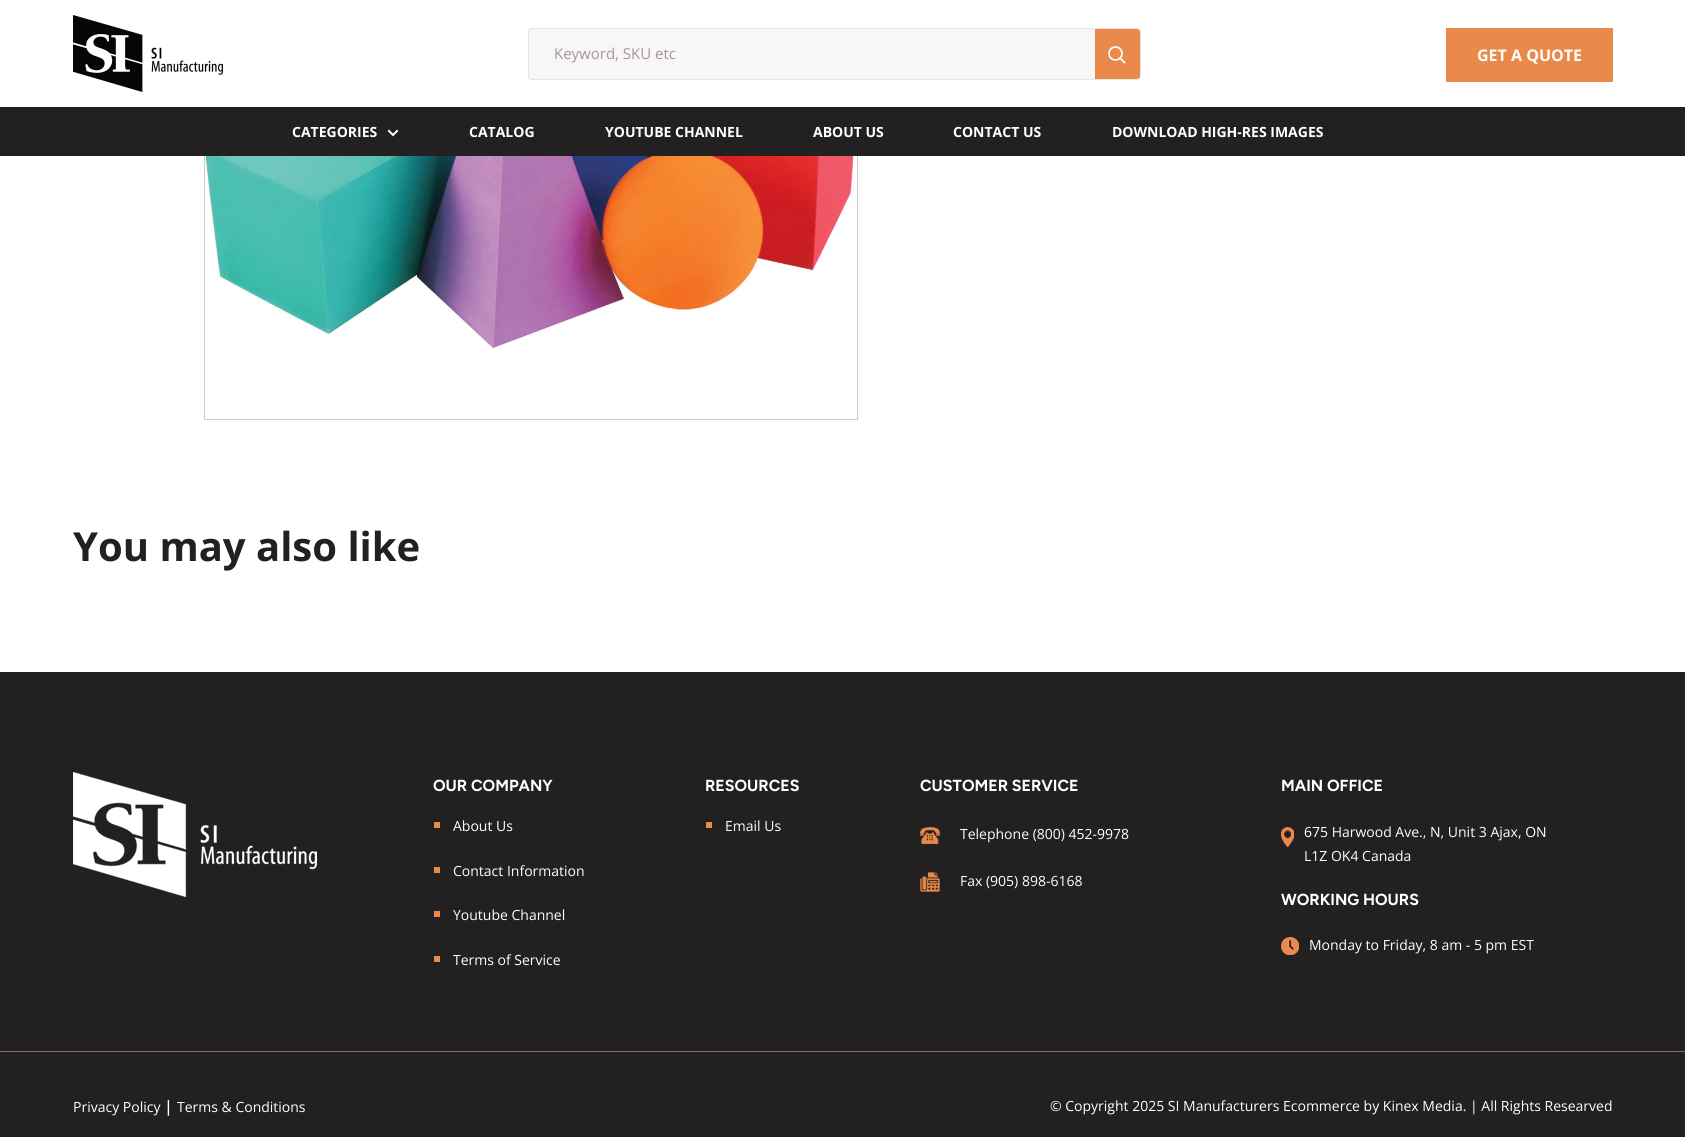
#include <cairo.h>
#include <math.h>
#include <stddef.h>


static void rgb(cairo_t *cr, int r, int g, int b)
{
	cairo_set_source_rgb(cr, r / 255.0, g / 255.0, b / 255.0);
}

static void face(cairo_t *cr, const char *family, double size, int italic, int bold)
{
	cairo_select_font_face(cr, family, italic ? CAIRO_FONT_SLANT_ITALIC : CAIRO_FONT_SLANT_NORMAL,
		bold ? CAIRO_FONT_WEIGHT_BOLD : CAIRO_FONT_WEIGHT_NORMAL);
	cairo_set_font_size(cr, size);
}

static void label(cairo_t *cr, double x, double y, const char *s)
{
	cairo_move_to(cr, x, y);
	cairo_show_text(cr, s);
}

static void rect(cairo_t *cr, double x, double y, double w, double h)
{
	cairo_rectangle(cr, x, y, w, h);
	cairo_fill(cr);
}

static void rrect(cairo_t *cr, double x, double y, double w, double h, double r)
{
	cairo_new_sub_path(cr);
	cairo_arc(cr, x + w - r, y + h - r, r, 0, M_PI / 2);
	cairo_arc(cr, x + r, y + h - r, r, M_PI / 2, M_PI);
	cairo_arc(cr, x + r, y + r, r, M_PI, 1.5 * M_PI);
	cairo_arc(cr, x + w - r, y + r, r, 1.5 * M_PI, 2 * M_PI);
	cairo_close_path(cr);
}

static void image(cairo_t *cr, const char *path, double x, double y, double w, double h)
{
	cairo_surface_t *image = cairo_image_surface_create_from_png(path);
	cairo_save(cr);
	cairo_set_source_surface(cr, image, x, y);
	cairo_rectangle(cr, x, y, w, h);
	cairo_fill(cr);
	cairo_restore(cr);
	cairo_surface_destroy(image);
}

static void draw(cairo_t *cr) {
	rgb(cr, 255, 255, 255);
	cairo_paint(cr);
	cairo_rectangle(cr, 204.5, -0.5, 653, 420);
	rgb(cr, 204, 204, 204);
	cairo_set_line_width(cr, 1);
	cairo_stroke(cr);
	rgb(cr, 255, 255, 255);
	rect(cr, 204, 0, 654, 107);
	image(cr, "image0.png", 73, 15, 150, 77);
	rgb(cr, 247, 247, 247);
	rrect(cr, 528.5, 28.5, 612, 51, 2.5);
	cairo_fill_preserve(cr);
	rgb(cr, 230, 230, 230);
	cairo_stroke(cr);
	face(cr, "Open Sans", 15, 0, 0);
	rgb(cr, 173, 146, 146);
	label(cr, 554, 59, "Keyword, SKU etc");
	rgb(cr, 233, 138, 75);
	cairo_new_path(cr);
	cairo_move_to(cr, 1095, 29);
	cairo_line_to(cr, 1137, 29);
	cairo_curve_to(cr, 1138.5, 29, 1140, 30.5, 1140, 32);
	cairo_line_to(cr, 1140, 76);
	cairo_curve_to(cr, 1140, 77.5, 1138.5, 79, 1137, 79);
	cairo_line_to(cr, 1095, 79);
	cairo_close_path(cr);
	cairo_fill(cr);
	cairo_new_path(cr);
	cairo_move_to(cr, 1124.5, 62.5);
	cairo_line_to(cr, 1120, 58);
	rgb(cr, 255, 255, 255);
	cairo_set_line_width(cr, 1.7);
	cairo_set_line_cap(cr, CAIRO_LINE_CAP_SQUARE);
	cairo_stroke(cr);
	cairo_arc(cr, 1115.5, 53.5, 6.5, 0, 2 * M_PI);
	cairo_set_line_cap(cr, CAIRO_LINE_CAP_BUTT);
	cairo_stroke(cr);
	rgb(cr, 233, 138, 75);
	rect(cr, 1446, 28, 167, 54);
	face(cr, "Open Sans", 16, 0, 1);
	rgb(cr, 255, 255, 255);
	label(cr, 1477, 61, "GET A QUOTE");
	rgb(cr, 34, 32, 33);
	rect(cr, 0, 107, 1685, 49);
	face(cr, "Open Sans", 14, 0, 1);
	rgb(cr, 255, 255, 255);
	label(cr, 292, 137, "CATEGORIES");
	cairo_new_path(cr);
	cairo_move_to(cr, 397, 131);
	cairo_line_to(cr, 393, 135);
	cairo_line_to(cr, 389, 131);
	cairo_set_line_width(cr, 2);
	cairo_set_line_cap(cr, CAIRO_LINE_CAP_SQUARE);
	cairo_stroke(cr);
	label(cr, 469, 137, "CATALOG");
	label(cr, 605, 137, "YOUTUBE CHANNEL");
	label(cr, 813, 137, "ABOUT US");
	label(cr, 953, 137, "CONTACT US");
	label(cr, 1112, 137, "DOWNLOAD HIGH-RES IMAGES");
	image(cr, "image1.png", 205, 156, 652, 193);
	face(cr, "Open Sans", 40, 0, 1);
	rgb(cr, 34, 32, 33);
	label(cr, 73, 561, "You may also like");
	rect(cr, 0, 672, 1685, 465);
	image(cr, "image2.png", 73, 772, 244, 125);
	face(cr, "Figtree", 16, 0, 1);
	rgb(cr, 255, 255, 255);
	label(cr, 433, 791, "OUR COMPANY");
	rgb(cr, 233, 138, 75);
	rect(cr, 434, 822, 6, 6);
	face(cr, "Open Sans", 14, 0, 0);
	rgb(cr, 255, 255, 255);
	label(cr, 453, 831, "About Us");
	rgb(cr, 233, 138, 75);
	rect(cr, 434, 867, 6, 6);
	rgb(cr, 255, 255, 255);
	label(cr, 453, 876, "Contact Information");
	rgb(cr, 233, 138, 75);
	rect(cr, 434, 911, 6, 6);
	rgb(cr, 255, 255, 255);
	label(cr, 453, 920, "Youtube Channel");
	rgb(cr, 233, 138, 75);
	rect(cr, 434, 956, 6, 6);
	rgb(cr, 255, 255, 255);
	label(cr, 453, 965, "Terms of Service");
	face(cr, "Figtree", 16, 0, 1);
	label(cr, 705, 791, "RESOURCES");
	rgb(cr, 233, 138, 75);
	rect(cr, 706, 822, 6, 6);
	face(cr, "Open Sans", 14, 0, 0);
	rgb(cr, 255, 255, 255);
	label(cr, 725, 831, "Email Us");
	face(cr, "Figtree", 16, 0, 1);
	label(cr, 920, 791, "CUSTOMER SERVICE");
	image(cr, "image3.png", 920, 827, 20, 17);
	face(cr, "Open Sans", 14, 0, 0);
	label(cr, 960, 839, "Telephone (800) 452-9978");
	image(cr, "image4.png", 920, 872, 20, 20);
	label(cr, 960, 886, "Fax (905) 898-6168");
	face(cr, "Figtree", 16, 0, 1);
	label(cr, 1281, 791, "MAIN OFFICE");
	image(cr, "image5.png", 1281, 827, 13, 20);
	face(cr, "Open Sans", 14, 0, 0);
	label(cr, 1304, 837, "675 Harwood Ave., N, Unit 3 Ajax, ON");
	label(cr, 1304, 861, "L1Z OK4 Canada");
	face(cr, "Figtree", 16, 0, 1);
	label(cr, 1281, 905, "WORKING HOURS");
	image(cr, "image6.png", 1281, 937, 18, 18);
	face(cr, "Open Sans", 14, 0, 0);
	label(cr, 1309, 950, "Monday to Friday, 8 am - 5 pm EST");
	label(cr, 73, 1112, "Privacy Policy");
	face(cr, "Open Sans SemiBold", 16, 0, 0);
	label(cr, 164, 1112, "|");
	face(cr, "Open Sans", 14, 0, 0);
	label(cr, 177, 1112, "Terms & Conditions");
	label(cr, 1050, 1111, "© Copyright 2025 SI Manufacturers Ecommerce by Kinex Media. | All Rights Researved");
	rgb(cr, 143, 102, 102);
	rect(cr, 0, 1051, 1685, 1);
}

int main(void) {
	cairo_surface_t *surface = cairo_image_surface_create(CAIRO_FORMAT_RGB24, 1685, 1137);
	cairo_t *cr = cairo_create(surface);
	cairo_font_options_t *options = cairo_font_options_create();
	cairo_font_options_set_hint_metrics(options, CAIRO_HINT_METRICS_OFF);
	cairo_font_options_set_hint_style(options, CAIRO_HINT_STYLE_NONE);
	cairo_set_font_options(cr, options);
	cairo_set_miter_limit(cr, 4);
	draw(cr);
	cairo_surface_write_to_png(surface, "render.png");
	cairo_font_options_destroy(options);
	cairo_destroy(cr);
	cairo_surface_destroy(surface);
	return 0;
}
